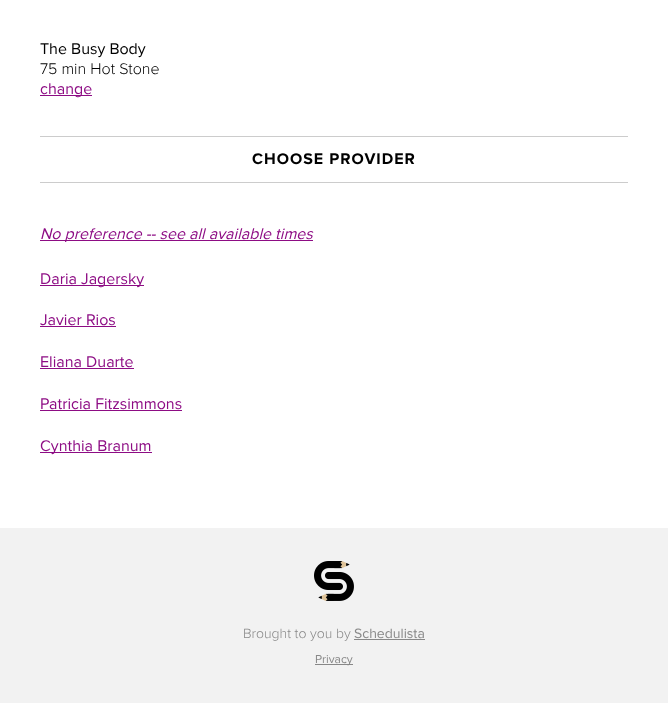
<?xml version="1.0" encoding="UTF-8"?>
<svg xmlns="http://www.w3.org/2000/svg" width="668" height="703">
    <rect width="100%" height="100%" fill="#FFFFFF"/>
    <text x="40" y="54" font-family="'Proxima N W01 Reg'" font-size="16" fill="#000000">The Busy Body</text>
    <text x="40" y="74" font-family="'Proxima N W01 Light'" font-size="16" font-weight="300" fill="#000000">75 min Hot Stone</text>
    <rect x="40" y="95" width="52" height="1" fill="#8D0C84"/>
    <text x="40" y="94" font-family="'Proxima N W01 Reg'" font-size="16" fill="#8D0C84">change</text>
    <rect x="40" y="136" width="588" height="1" fill="#CCCCCC"/>
    <rect x="40" y="182" width="588" height="1" fill="#CCCCCC"/>
    <text x="252" y="164" font-family="'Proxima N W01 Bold'" font-size="16" font-weight="700" letter-spacing="1" fill="#000000">CHOOSE PROVIDER</text>
    <rect x="40" y="240" width="273" height="1" fill="#8D0C84"/>
    <text x="40" y="239" font-family="'Proxima N W01 Reg'" font-size="16" font-style="italic" fill="#8D0C84">No preference -- see all available times</text>
    <rect x="40" y="285" width="104" height="1" fill="#8D0C84"/>
    <text x="40" y="284" font-family="'Proxima N W01 Reg'" font-size="16" fill="#8D0C84">Daria Jagersky</text>
    <text x="40" y="325" font-family="'Proxima N W01 Reg'" font-size="16" fill="#8D0C84">Javier Rios</text>
    <rect x="40" y="326" width="76" height="1" fill="#8D0C84"/>
    <text x="40" y="367" font-family="'Proxima N W01 Reg'" font-size="16" fill="#8D0C84">Eliana Duarte</text>
    <rect x="40" y="368" width="94" height="1" fill="#8D0C84"/>
    <text x="40" y="409" font-family="'Proxima N W01 Reg'" font-size="16" fill="#8D0C84">Patricia Fitzsimmons</text>
    <rect x="40" y="410" width="142" height="1" fill="#8D0C84"/>
    <rect x="40" y="452" width="112" height="1" fill="#8D0C84"/>
    <text x="40" y="451" font-family="'Proxima N W01 Reg'" font-size="16" fill="#8D0C84">Cynthia Branum</text>
    <rect x="0" y="528" width="668" height="175" fill="#F2F2F2"/>
    <image x="314" y="561" width="40" height="40" href="img_01.png"/>
    <text x="243" y="638" font-family="'Proxima N W01 Light'" font-size="14" font-weight="300" fill="#888888">Brought to you by</text>
    <text x="354" y="638" font-family="'Proxima N W01 Reg'" font-size="14" fill="#888888">Schedulista</text>
    <rect x="354" y="639" width="71" height="1" fill="#888888"/>
    <rect x="315" y="664" width="38" height="1" fill="#888888"/>
    <text x="315" y="663" font-family="'Proxima N W01 Reg'" font-size="12" fill="#888888">Privacy</text>
</svg>
